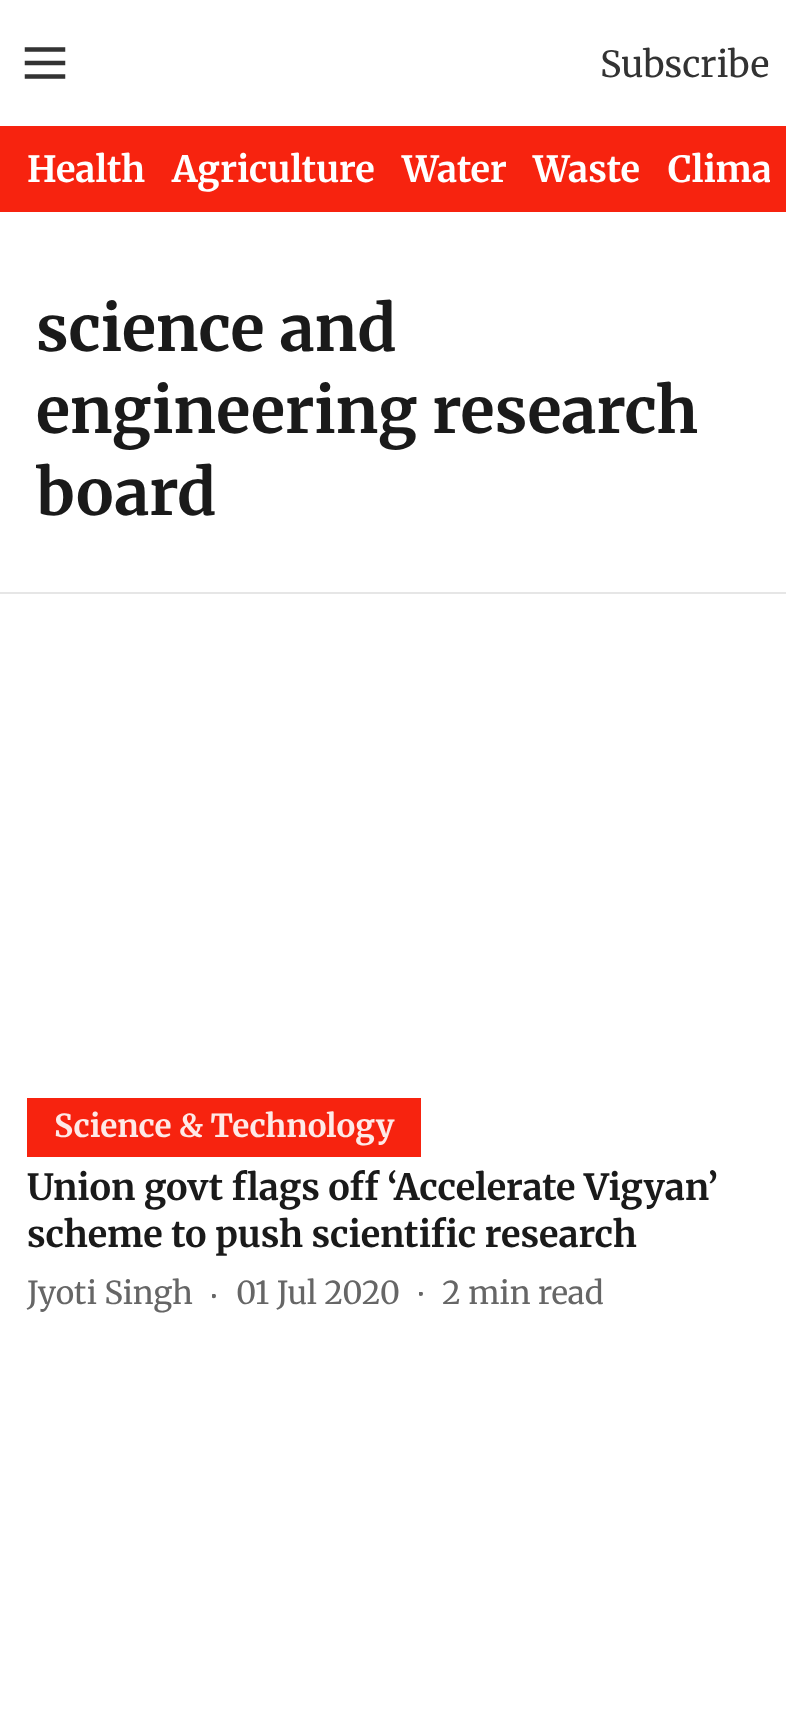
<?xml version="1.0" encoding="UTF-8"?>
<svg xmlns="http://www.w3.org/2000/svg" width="786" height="1733">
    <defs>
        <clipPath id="clip1"><rect x="0" y="126" width="770" height="86"/></clipPath>
        <clipPath id="clip2"><rect x="212" y="1294" width="7" height="7"/></clipPath>
        <clipPath id="clip3"><rect x="419" y="1292" width="7" height="7"/></clipPath>
    </defs>
    <rect width="100%" height="100%" fill="#FFFFFF"/>
    <image x="24" y="47" width="42" height="32" href="img_01.png"/>
    <text x="600" y="77" font-family="'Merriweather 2'" font-size="36" font-weight="300" fill="#333333">Subscribe</text>
    <rect x="0" y="126" width="786" height="86" fill="#F7230F"/>
    <text x="27" y="182" font-family="Merriweather" font-size="36" font-weight="300" fill="#FFFFFF">Health</text>
    <text x="172" y="182" font-family="Merriweather" font-size="36" font-weight="300" fill="#FFFFFF">Agriculture</text>
    <text x="402" y="182" font-family="Merriweather" font-size="36" font-weight="300" fill="#FFFFFF">Water</text>
    <text x="533" y="182" font-family="Merriweather" font-size="36" font-weight="300" fill="#FFFFFF">Waste</text>
    <g clip-path="url(#clip1)">
        <text x="668" y="182" font-family="Merriweather" font-size="36" font-weight="300" fill="#FFFFFF">Clima</text>
    </g>
    <rect x="0" y="592" width="786" height="2" fill="#E6E6E6"/>
    <text font-family="Merriweather" font-size="63" font-weight="300" fill="#1A1A1A">
        <tspan x="36" y="351">science and</tspan>
        <tspan x="36" y="433">engineering research</tspan>
        <tspan x="36" y="515">board</tspan>
    </text>
    <rect x="27" y="1098" width="394" height="59" fill="#F7230F"/>
    <text x="54" y="1137" font-family="Merriweather" font-size="31.5" font-weight="300" fill="#FEE9E7">Science &amp; Technology</text>
    <text font-family="Merriweather" font-size="36" font-weight="300" fill="#1A1A1A">
        <tspan x="27" y="1200">Union govt flags off ‘Accelerate Vigyan’</tspan>
        <tspan x="27" y="1247">scheme to push scientific research</tspan>
    </text>
    <text x="27" y="1304" font-family="'Merriweather 2'" font-size="31.5" font-weight="300" fill="#666666">Jyoti Singh</text>
    <g clip-path="url(#clip2)">
        <circle cx="213.8" cy="1296" r="2.2" fill="#666666"/>
    </g>
    <text x="236" y="1304" font-family="'Merriweather 2'" font-size="31.5" font-weight="300" fill="#666666">01 Jul 2020</text>
    <g clip-path="url(#clip3)">
        <circle cx="420.8" cy="1293.8" r="2.2" fill="#666666"/>
    </g>
    <text x="442" y="1304" font-family="'Merriweather 2'" font-size="31.5" font-weight="300" fill="#666666">2 min read</text>
</svg>
